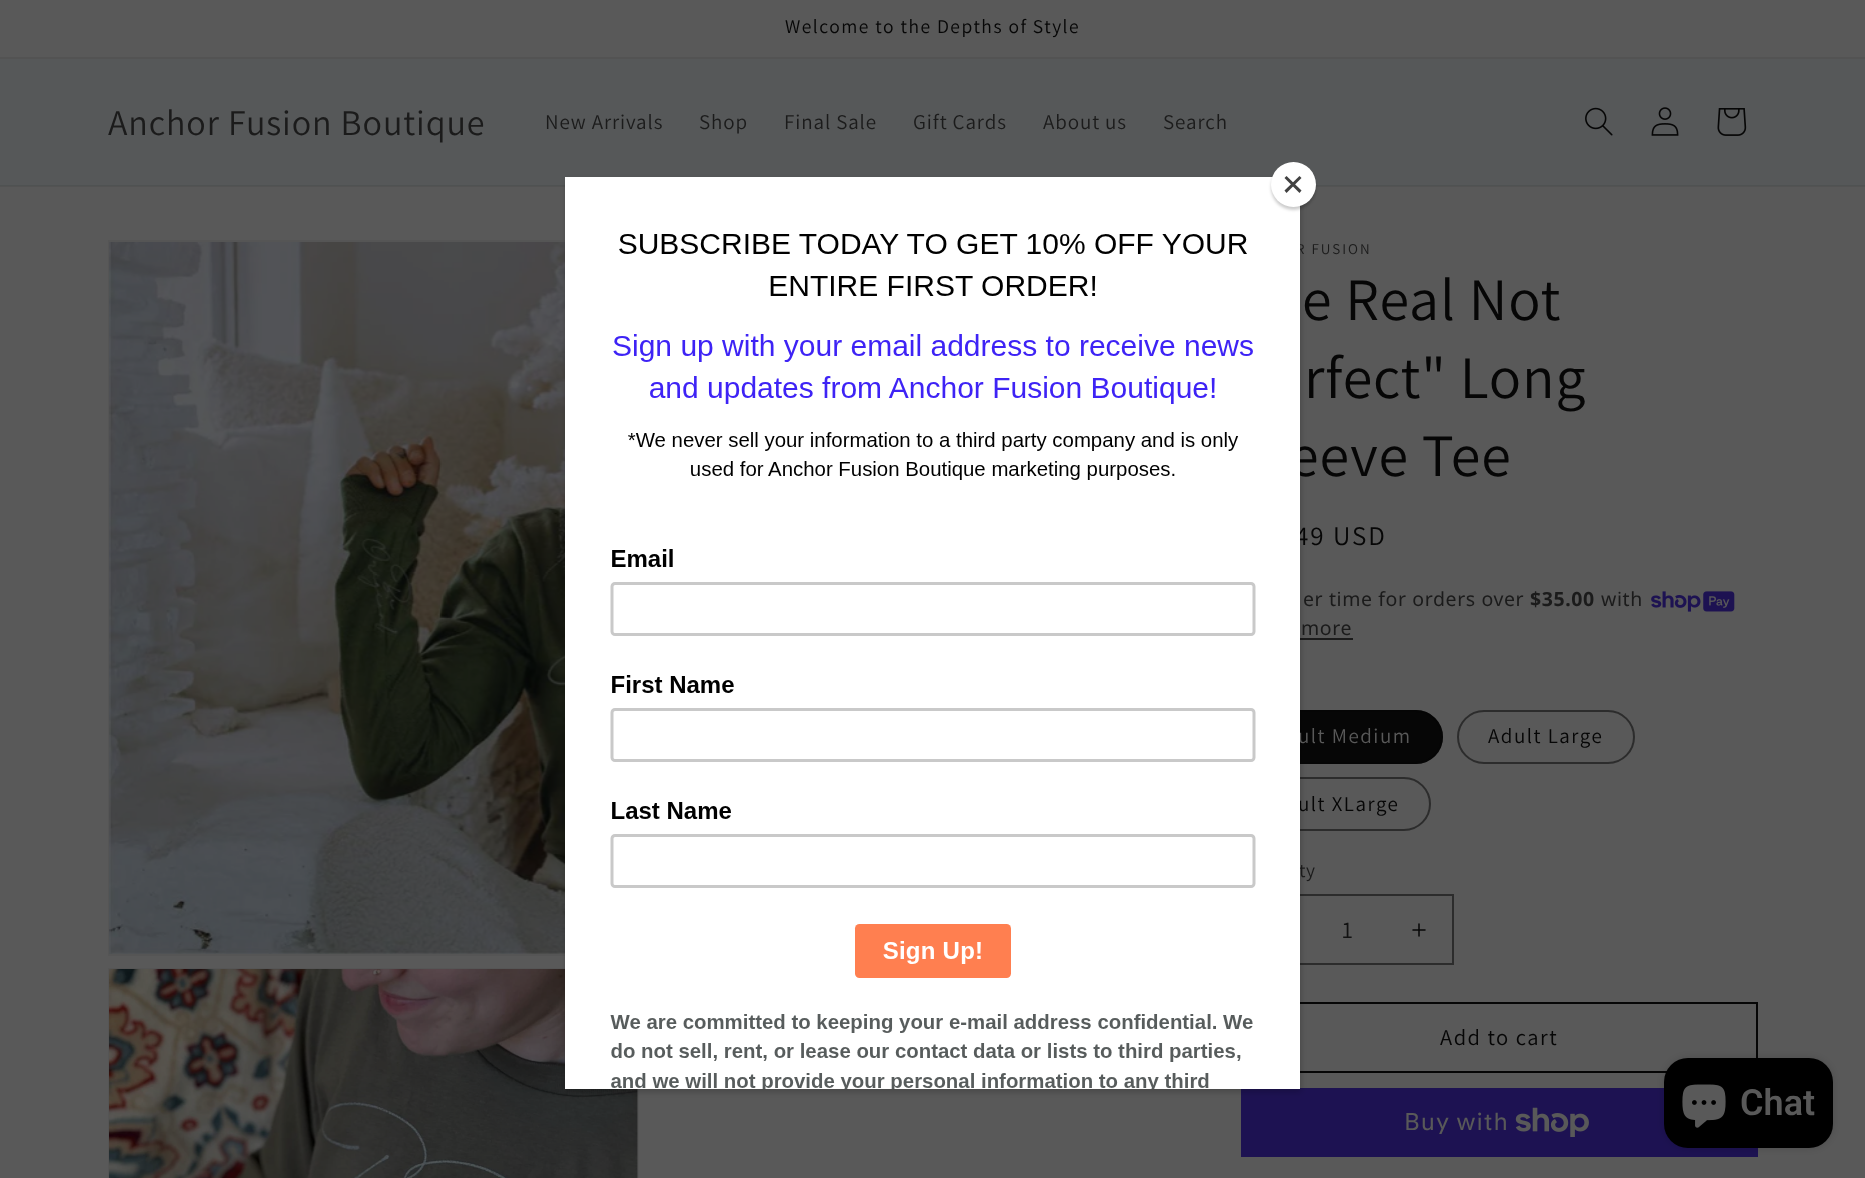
<?xml version="1.0" encoding="UTF-8"?>
<svg xmlns="http://www.w3.org/2000/svg" width="1865" height="1178">
    <defs>
        <filter id="blur1" x="-50%" y="-200%" width="200%" height="500%"><feGaussianBlur stdDeviation="3"/></filter>
        <filter id="blur2" x="-50%" y="-200%" width="200%" height="500%"><feGaussianBlur stdDeviation="1.5"/></filter>
        <filter id="blur3" x="-50%" y="-200%" width="200%" height="500%"><feGaussianBlur stdDeviation="4"/></filter>
    </defs>
    <rect width="100%" height="100%" fill="#595959"/>
    <rect x="0" y="186" width="1865" height="1" fill="#535353"/>
    <rect x="0" y="57" width="1865" height="2" fill="#535353"/>
    <text x="785" y="33" font-family="Assistant" font-size="19.5" letter-spacing="1.5" fill="#060606">Welcome to the Depths of Style</text>
    <rect x="0" y="59" width="1865" height="126" fill="#565859"/>
    <rect x="0" y="185" width="1865" height="1" fill="#4F5252"/>
    <text x="108" y="135" font-family="Assistant" font-size="36" letter-spacing="0.9" fill="#1B1B1B">Anchor Fusion Boutique</text>
    <text x="545" y="129" font-family="Assistant" font-size="21" letter-spacing="0.9" fill="#1B1B1B">New Arrivals</text>
    <text x="699" y="129" font-family="Assistant" font-size="21" letter-spacing="0.9" fill="#1B1B1B">Shop</text>
    <text x="784" y="129" font-family="Assistant" font-size="21" letter-spacing="0.9" fill="#1B1B1B">Final Sale</text>
    <text x="913" y="129" font-family="Assistant" font-size="21" letter-spacing="0.9" fill="#1B1B1B">Gift Cards</text>
    <text x="1043" y="129" font-family="Assistant" font-size="21" letter-spacing="0.9" fill="#1B1B1B">About us</text>
    <text x="1163" y="129" font-family="Assistant" font-size="21" letter-spacing="0.9" fill="#1B1B1B">Search</text>
    <image x="1585" y="107" width="28" height="29" href="img_01.png"/>
    <image x="1651" y="107" width="28" height="29" href="img_02.png"/>
    <image x="1717" y="108" width="30" height="28" href="img_03.png"/>
    <rect x="109" y="241" width="1071" height="714" fill="none" stroke="#555555" stroke-width="2"/>
    <image x="109" y="242" width="456" height="712" href="img_05.png"/>
    <rect x="109" y="969" width="529" height="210" fill="none" stroke="#555555" stroke-width="2"/>
    <image x="109" y="969" width="529" height="209" href="img_06.png"/>
    <rect x="1300" y="638" width="53" height="2" fill="#1B1B1B"/>
    <rect x="1241" y="710" width="202" height="54" rx="27" fill="#060606"/>
    <rect x="1242" y="711" width="200" height="52" rx="26" fill="none" stroke="#060606" stroke-opacity="0.55" stroke-width="2"/>
    <rect x="1242" y="778" width="188" height="52" rx="26" fill="none" stroke="#2C2C2C" stroke-width="2"/>
    <image x="1412" y="923" width="14" height="14" href="img_08.png"/>
    <rect x="1242" y="895" width="211" height="69" fill="none" stroke="#2C2C2C" stroke-width="2"/>
    <rect x="1242" y="1003" width="515" height="69" fill="none" stroke="#060606" stroke-width="2"/>
    <rect x="1241" y="1088" width="517" height="69" fill="#1D1252"/>
    <rect x="566" y="180" width="735" height="912" fill="#000000" fill-opacity="0.2" filter="url(#blur1)"/>
    <text x="1296" y="254" font-family="Assistant" font-size="15" letter-spacing="2" fill="#1B1B1B">R FUSION</text>
    <text x="1289" y="476" font-family="Assistant" font-size="60" letter-spacing="0.9" fill="#060606">eeve Tee</text>
    <text x="1295" y="545" font-family="Assistant" font-size="27" letter-spacing="2" fill="#060606">49 USD</text>
    <text x="1298" y="743" font-family="Assistant" font-size="21" letter-spacing="1.5" fill="#595959">ult Medium</text>
    <text x="1298" y="811" font-family="Assistant" font-size="21" letter-spacing="1.5" fill="#060606">ult XLarge</text>
    <text x="1299" y="877" font-family="Assistant" font-size="19.5" letter-spacing="0.6" fill="#1B1B1B">ty</text>
    <image x="565" y="177" width="735" height="912" href="img_04.png"/>
    <rect x="1271" y="165" width="45" height="45" rx="22.5" fill="#000000" fill-opacity="0.2" filter="url(#blur2)"/>
    <circle cx="1293.5" cy="184.5" r="22.5" fill="#FFFFFF"/>
    <path d="M 1299.5 176 L 1301.5 178 L 1286.5 193 L 1284.5 190.5 Z" fill="#414141"/>
    <path d="M 1284.5 178 L 1286.5 176 L 1301.5 190.5 L 1299.5 193 Z" fill="#414141"/>
    <text x="1302" y="320" font-family="Assistant" font-size="60" letter-spacing="0.9" fill="#060606">e Real Not</text>
    <text x="1304" y="398" font-family="Assistant" font-size="60" letter-spacing="0.9" fill="#060606">rfect" Long</text>
    <text x="1303" y="606" font-family="Noto Sans" font-size="19.5" letter-spacing="0.6" fill="#1B1B1B">er time for orders over</text>
    <text x="1530" y="606" font-family="Noto Sans" font-size="19.5" font-weight="700" letter-spacing="0.6" fill="#1B1B1B">$35.00</text>
    <text x="1601" y="606" font-family="Noto Sans" font-size="19.5" letter-spacing="0.6" fill="#1B1B1B">with</text>
    <image x="1651" y="591" width="84" height="21" href="img_07.png"/>
    <text x="1301" y="635" font-family="Noto Sans" font-size="19.5" letter-spacing="0.6" fill="#1B1B1B">more</text>
    <rect x="1458" y="711" width="176" height="52" rx="26" fill="none" stroke="#2C2C2C" stroke-width="2"/>
    <text x="1488" y="743" font-family="Assistant" font-size="21" letter-spacing="1.5" fill="#060606">Adult Large</text>
    <text x="1342" y="938" font-family="Assistant" font-size="24" fill="#131313">1</text>
    <text x="1440" y="1045" font-family="Assistant" font-size="22.5" letter-spacing="1.5" fill="#060606">Add to cart</text>
    <text x="1404" y="1130" font-family="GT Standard" font-size="24" letter-spacing="0.9" fill="#595959">Buy with</text>
    <image x="1515" y="1107" width="74" height="30" href="img_09.png"/>
    <rect x="1664" y="1058" width="169" height="90" rx="24" fill="#000000" fill-opacity="0.15" filter="url(#blur3)"/>
    <rect x="1664" y="1058" width="169" height="90" rx="24" fill="#000000"/>
    <image x="1682" y="1084" width="44" height="44" href="img_10.png"/>
    <text x="1740" y="1115" font-family="Roboto" font-size="36" font-weight="600" fill="#595959">Chat</text>
</svg>
